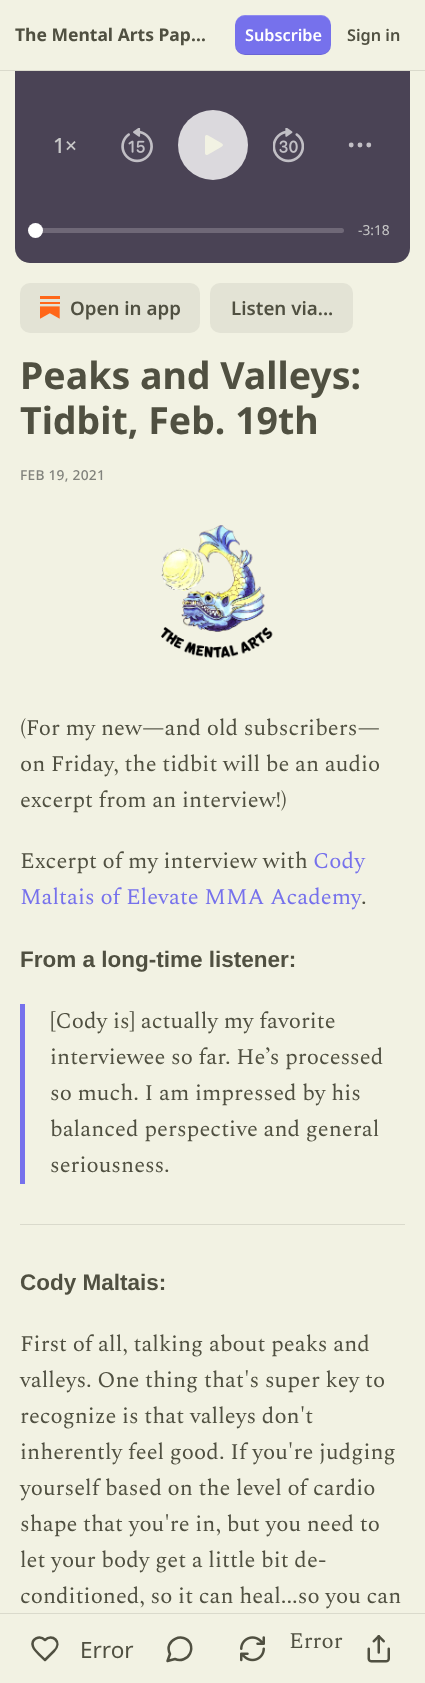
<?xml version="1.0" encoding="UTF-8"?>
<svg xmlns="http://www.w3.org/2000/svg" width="425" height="1683">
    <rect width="100%" height="100%" fill="#F2F2E3"/>
    <rect x="15" y="13" width="395" height="250" rx="15" fill="#9F9F95"/>
    <rect x="15" y="13" width="395" height="250" rx="15" fill="#2E2440" fill-opacity="0.75"/>
    <rect x="15" y="13" width="395" height="57" fill="#F2F2E3"/>
    <rect x="0" y="70" width="425" height="1" fill="#DADACC"/>
    <text x="15" y="41" font-family="Noto Sans" font-size="17.5" font-weight="700" fill="#505041">The Mental Arts Pap…</text>
    <rect x="235" y="15" width="96" height="40" rx="10" fill="#7671EC"/>
    <path d="M 235 44 C 235 57 248 55 258 55 H 308 C 318 55 331 57 331 44 C 331 49 327 54 321 54 H 245 C 239 54 235 49 235 44 Z" fill="#000000" fill-opacity="0.1"/>
    <path d="M 245 16 H 321 C 327 16 331 21 331 26 C 331 13 318 15 308 15 H 258 C 248 15 235 13 235 26 C 235 21 239 16 245 16 Z" fill="#FFFFFF" fill-opacity="0.2"/>
    <text x="245" y="41" font-family="Noto Sans" font-size="16.25" font-weight="600" fill="#FFFFFF">Subscribe</text>
    <text x="347" y="41" font-family="Noto Sans" font-size="16.25" font-weight="600" fill="#505041">Sign in</text>
    <text x="53" y="153" font-family="Noto Sans" font-size="21" font-weight="500" fill="#C8C8C8">1×</text>
    <image x="121" y="128" width="32" height="35" href="img_01.png"/>
    <circle cx="213" cy="145" r="35" fill="#DBD9DD"/>
    <image x="205" y="135" width="18" height="20" href="img_02.png"/>
    <image x="273" y="128" width="31" height="35" href="img_03.png"/>
    <circle cx="360" cy="145" r="1.2" fill="none" stroke="#C2BFC5" stroke-width="2.5"/>
    <circle cx="368.8" cy="145" r="1.2" fill="none" stroke="#C2BFC5" stroke-width="2.5"/>
    <circle cx="351.2" cy="145" r="1.2" fill="none" stroke="#C2BFC5" stroke-width="2.5"/>
    <rect x="35" y="228" width="309" height="5" rx="2.5" fill="#6F6877"/>
    <circle cx="35.5" cy="230.5" r="7.5" fill="#FFFFFF"/>
    <text x="358" y="235" font-family="Noto Sans" font-size="13.75" fill="#C8C8C8">-3:18</text>
    <rect x="20" y="283" width="180" height="50" rx="10" fill="#E3E3D5"/>
    <image x="40" y="296" width="20" height="23" href="img_04.png"/>
    <text x="70" y="315" font-family="Noto Sans" font-size="18.75" font-weight="600" fill="#505041">Open in app</text>
    <rect x="210" y="283" width="143" height="50" rx="10" fill="#E3E3D5"/>
    <text x="231" y="315" font-family="Noto Sans" font-size="18.75" font-weight="600" fill="#505041">Listen via...</text>
    <text font-family="Noto Sans" font-size="37.5" font-weight="700" fill="#505041">
        <tspan x="20" y="389">Peaks and Valleys:</tspan>
        <tspan x="20" y="434">Tidbit, Feb. 19th</tspan>
    </text>
    <text x="20" y="480" font-family="Noto Sans" font-size="13.75" font-weight="500" letter-spacing="0.25" fill="#81827C">FEB 19, 2021</text>
    <image x="161" y="525" width="112" height="133" href="img_05.png"/>
    <text font-family="Spectral" font-size="22.5" fill="#505041">
        <tspan x="20" y="735">(For my new—and old subscribers—</tspan>
        <tspan x="20" y="771">on Friday, the tidbit will be an audio</tspan>
        <tspan x="20" y="807">excerpt from an interview!)</tspan>
    </text>
    <text x="20" y="868" font-family="Spectral" font-size="22.5" fill="#505041">Excerpt of my interview with</text>
    <text x="313" y="868" font-family="Spectral" font-size="22.5" fill="#7671EC">Cody</text>
    <text x="20" y="904" font-family="Spectral" font-size="22.5" fill="#7671EC">Maltais of Elevate MMA Academy</text>
    <text x="361" y="904" font-family="Spectral" font-size="22.5" fill="#505041">.</text>
    <text x="20" y="967" font-family="Liberation Sans" font-size="22.5" font-weight="700" fill="#505041">From a long-time listener:</text>
    <rect x="20" y="1004" width="5" height="180" fill="#7671EC"/>
    <text font-family="Spectral" font-size="22.5" fill="#505041">
        <tspan x="50" y="1028">[Cody is] actually my favorite</tspan>
        <tspan x="50" y="1064">interviewee so far. He’s processed</tspan>
        <tspan x="50" y="1100">so much. I am impressed by his</tspan>
        <tspan x="50" y="1136">balanced perspective and general</tspan>
        <tspan x="50" y="1172">seriousness.</tspan>
    </text>
    <rect x="20" y="1224" width="385" height="1" fill="#DADACC"/>
    <text x="20" y="1290" font-family="Liberation Sans" font-size="22.5" font-weight="700" fill="#505041">Cody Maltais:</text>
    <text font-family="Spectral" font-size="22.5" fill="#505041">
        <tspan x="20" y="1351">First of all, talking about peaks and</tspan>
        <tspan x="20" y="1387">valleys. One thing that's super key to</tspan>
        <tspan x="20" y="1423">recognize is that valleys don't</tspan>
        <tspan x="20" y="1459">inherently feel good. If you're judging</tspan>
        <tspan x="20" y="1495">yourself based on the level of cardio</tspan>
        <tspan x="20" y="1531">shape that you're in, but you need to</tspan>
        <tspan x="20" y="1567">let your body get a little bit de-</tspan>
        <tspan x="20" y="1603">conditioned, so it can heal...so you can</tspan>
    </text>
    <rect x="0" y="1613" width="425" height="1" fill="#DADACC"/>
    <path d="M 54 1651 C 63 1642 52 1633 45 1640 C 39.5 1634.5 30.5 1639 33 1646.5 C 34 1650.5 42 1657 45 1660 Z" fill="none" stroke="#505041" stroke-width="2.5" stroke-linecap="round" stroke-linejoin="round"/>
    <text x="80" y="1658" font-family="Noto Sans" font-size="22.5" fill="#505041">Error</text>
    <path d="M 175 1659 C 180.5 1661.5 187.5 1659 190 1653.5 C 191.5 1650.5 191.5 1647 190.5 1644 C 184 1630.5 163 1640.5 170 1654 L 167.5 1661 Z" fill="none" stroke="#505041" stroke-width="2.5" stroke-linecap="round" stroke-linejoin="round"/>
    <image x="240" y="1636" width="25" height="26" href="img_06.png"/>
    <text x="289" y="1648" font-family="Spectral" font-size="22.5" fill="#505041">Error</text>
    <image x="367" y="1635" width="23" height="28" href="img_07.png"/>
</svg>
